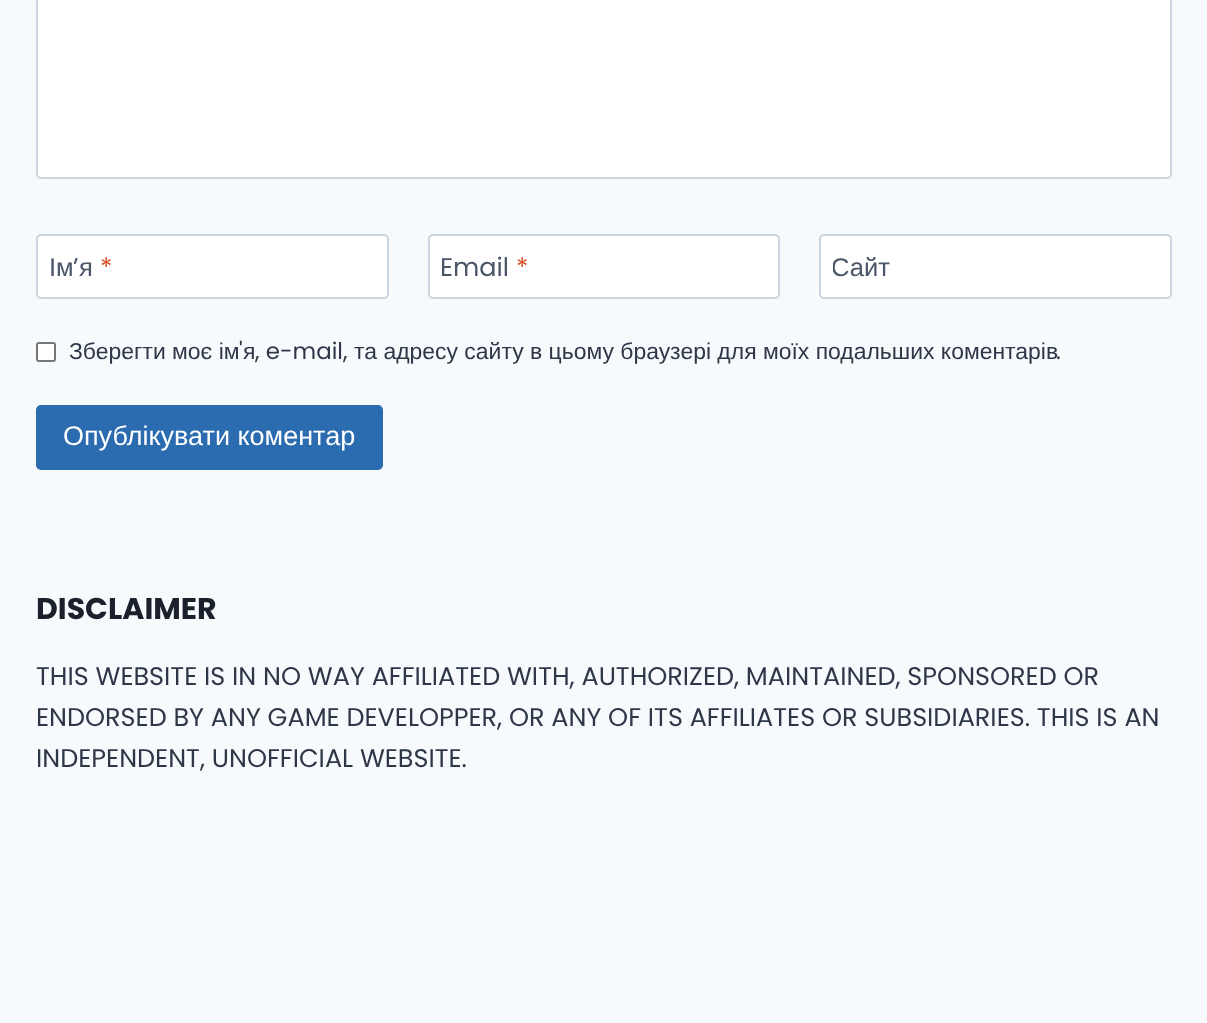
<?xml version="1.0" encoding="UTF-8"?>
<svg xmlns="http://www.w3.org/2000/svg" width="1207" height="1023">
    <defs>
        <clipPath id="clip1"><rect x="833" y="251" width="58" height="43"/></clipPath>
    </defs>
    <rect width="100%" height="100%" fill="#F7FAFC"/>
    <rect x="37" y="-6" width="1134" height="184" rx="4" fill="#FFFFFF" stroke="#CBD5E0" stroke-width="2"/>
    <rect x="37" y="235" width="351" height="63" rx="4" fill="#FFFFFF" stroke="#CBD5E0" stroke-width="2"/>
    <text x="49" y="276" font-family="Liberation Sans" font-size="25.5" fill="#4A5568">Ім</text>
    <text x="73" y="276" font-family="Poppins" font-size="25.5" fill="#4A5568">’</text>
    <text x="100" y="276" font-family="Poppins" font-size="25.5" fill="#D54E21">*</text>
    <text x="79" y="276" font-family="Liberation Sans" font-size="25.5" fill="#4A5568">я</text>
    <rect x="429" y="235" width="350" height="63" rx="4" fill="#FFFFFF" stroke="#CBD5E0" stroke-width="2"/>
    <text x="440" y="276" font-family="Poppins" font-size="25.5" fill="#4A5568">Email</text>
    <text x="516" y="276" font-family="Poppins" font-size="25.5" fill="#D54E21">*</text>
    <rect x="820" y="235" width="351" height="63" rx="4" fill="#FFFFFF" stroke="#CBD5E0" stroke-width="2"/>
    <g clip-path="url(#clip1)">
        <text x="831" y="276" font-family="Liberation Sans" font-size="25.5" fill="#4A5568">Сайт</text>
    </g>
    <rect x="37" y="343" width="18" height="18" rx="2" fill="#FFFFFF" stroke="#767676" stroke-width="2"/>
    <text x="69" y="359" font-family="Liberation Sans" font-size="22.95" fill="#2D3748">Зберегти моє ім</text>
    <text x="239" y="359" font-family="Poppins" font-size="22.95" fill="#2D3748">'</text>
    <text x="243" y="359" font-family="Liberation Sans" font-size="22.95" fill="#2D3748">я</text>
    <text x="255" y="359" font-family="Poppins" font-size="22.95" fill="#2D3748">, e-mail,</text>
    <text x="354" y="359" font-family="Liberation Sans" font-size="22.95" fill="#2D3748">та адресу сайту в цьому браузері для моїх подальших коментарів</text>
    <text x="1056" y="359" font-family="Poppins" font-size="22.95" fill="#2D3748">.</text>
    <rect x="36" y="405" width="347" height="65" rx="5" fill="#2B6CB0"/>
    <text x="63" y="445" font-family="Liberation Sans" font-size="27" fill="#FFFFFF">Опублікувати коментар</text>
    <text x="36" y="619" font-family="Poppins" font-size="30" font-weight="700" fill="#1A202C">DISCLAIMER</text>
    <text font-family="Poppins" font-size="25.5" fill="#2D3748">
        <tspan x="36" y="685">THIS WEBSITE IS IN NO WAY AFFILIATED WITH, AUTHORIZED, MAINTAINED, SPONSORED OR</tspan>
        <tspan x="36" y="726">ENDORSED BY ANY GAME DEVELOPPER, OR ANY OF ITS AFFILIATES OR SUBSIDIARIES. THIS IS AN</tspan>
        <tspan x="36" y="767">INDEPENDENT, UNOFFICIAL WEBSITE.</tspan>
    </text>
</svg>
